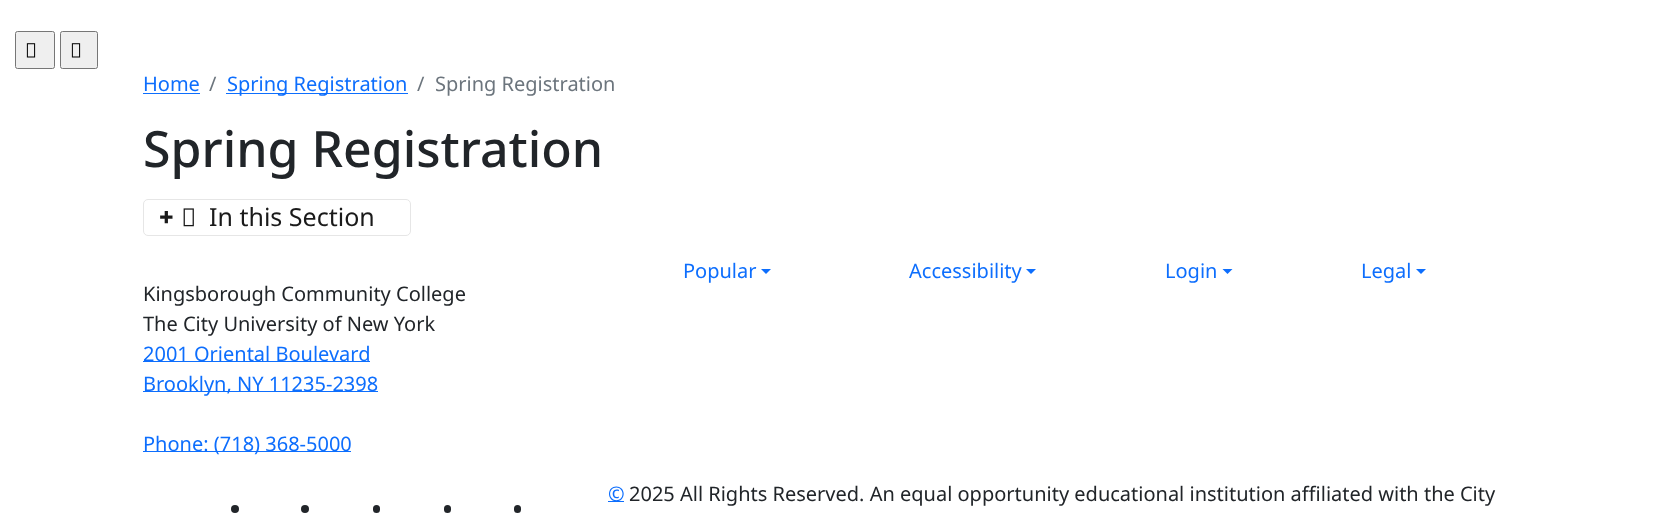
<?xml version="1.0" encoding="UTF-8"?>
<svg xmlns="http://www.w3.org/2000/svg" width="1679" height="518">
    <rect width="100%" height="100%" fill="#FFFFFF"/>
    <rect x="15.5" y="31.5" width="39" height="37" rx="2" fill="#EFEFEF" stroke="#767676"/>
    <image x="26" y="43" width="10" height="15" href="img_01.png"/>
    <rect x="60.5" y="31.5" width="37" height="37" rx="2" fill="#EFEFEF" stroke="#767676"/>
    <image x="71" y="43" width="10" height="15" href="img_01.png"/>
    <text x="143" y="91" font-family="Noto Sans" font-size="20" fill="#0D6EFD">Home</text>
    <rect x="143" y="93" width="57" height="1" fill="#0D6EFD"/>
    <text x="209" y="91" font-family="Noto Sans" font-size="20" fill="#6C757D">/</text>
    <rect x="226" y="93" width="182" height="1" fill="#0D6EFD"/>
    <text x="227" y="91" font-family="Noto Sans" font-size="20" fill="#0D6EFD">Spring Registration</text>
    <text x="417" y="91" font-family="Noto Sans" font-size="20" fill="#6C757D">/</text>
    <text x="435" y="91" font-family="Noto Sans" font-size="20" fill="#6C757D">Spring Registration</text>
    <text x="143" y="167" font-family="Noto Sans" font-size="50" font-weight="500" fill="#212529">Spring Registration</text>
    <rect x="143.5" y="199.5" width="267" height="36" rx="4.5" fill="none" stroke="#E6E6E6"/>
    <text x="159" y="226" font-family="Noto Sans" font-size="25" font-weight="900" fill="#1A1A1A">+</text>
    <image x="183" y="208" width="11" height="19" href="img_02.png"/>
    <text x="209" y="226" font-family="Noto Sans" font-size="25" fill="#1A1A1A">In this Section</text>
    <text x="683" y="278" font-family="Noto Sans" font-size="20" fill="#0D6EFD">Popular</text>
    <path d="M 761 269 H 771 L 766 274 Z" fill="#0D6EFD"/>
    <text x="909" y="278" font-family="Noto Sans" font-size="20" fill="#0D6EFD">Accessibility</text>
    <path d="M 1026 269 H 1036 L 1031 274 Z" fill="#0D6EFD"/>
    <text x="1165" y="278" font-family="Noto Sans" font-size="20" fill="#0D6EFD">Login</text>
    <path d="M 1222.5 269 H 1232.5 L 1227.5 274 Z" fill="#0D6EFD"/>
    <text x="1361" y="278" font-family="Noto Sans" font-size="20" fill="#0D6EFD">Legal</text>
    <path d="M 1416 269 H 1426 L 1421 274 Z" fill="#0D6EFD"/>
    <text font-family="Noto Sans" font-size="20" fill="#212529">
        <tspan x="143" y="301">Kingsborough Community College</tspan>
        <tspan x="143" y="331">The City University of New York</tspan>
    </text>
    <rect x="143" y="361" width="227" height="1" fill="#0D6EFD"/>
    <text x="143" y="361" font-family="Noto Sans" font-size="20" fill="#0D6EFD">2001 Oriental Boulevard</text>
    <rect x="143" y="391" width="235" height="1" fill="#0D6EFD"/>
    <text x="143" y="391" font-family="Noto Sans" font-size="20" fill="#0D6EFD">Brooklyn, NY 11235-2398</text>
    <rect x="143" y="451" width="208" height="1" fill="#0D6EFD"/>
    <text x="143" y="451" font-family="Noto Sans" font-size="20" fill="#0D6EFD">Phone: (718) 368-5000</text>
    <rect x="608" y="501" width="16" height="1" fill="#0D6EFD"/>
    <text x="608" y="501" font-family="Noto Sans" font-size="20" fill="#0D6EFD">©</text>
    <text x="629" y="501" font-family="Noto Sans" font-size="20" fill="#212529">2025 All Rights Reserved. An equal opportunity educational institution affiliated with the City</text>
    <circle cx="235" cy="509" r="4" fill="#212529"/>
    <circle cx="305" cy="509" r="4" fill="#212529"/>
    <rect x="373" y="505" width="7" height="8" rx="3.5" fill="#212529"/>
    <rect x="444" y="505" width="7" height="8" rx="3.5" fill="#212529"/>
    <rect x="514" y="505" width="7" height="8" rx="3.5" fill="#212529"/>
</svg>
